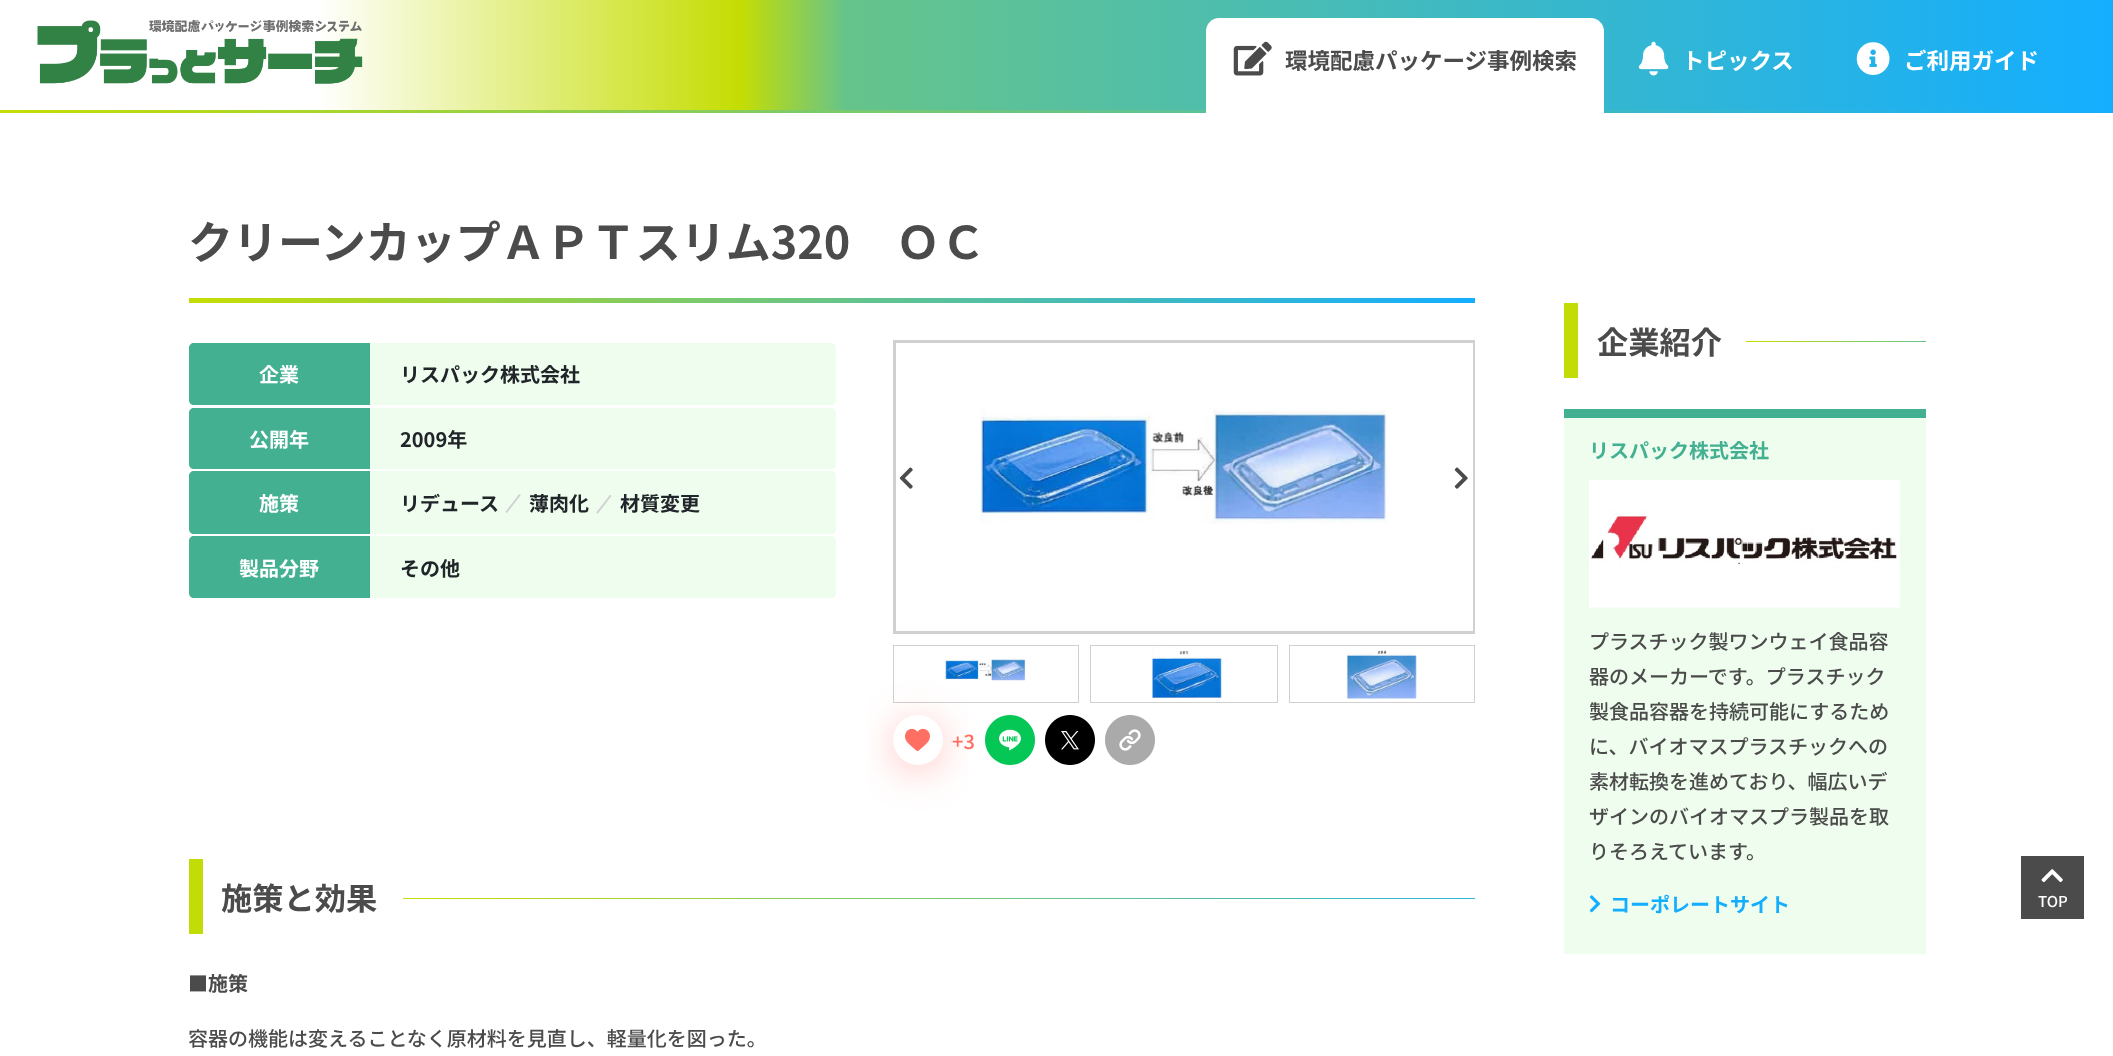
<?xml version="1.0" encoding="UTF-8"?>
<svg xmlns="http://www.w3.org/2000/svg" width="2113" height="1056">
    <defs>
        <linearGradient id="g1" gradientUnits="userSpaceOnUse" x1="0" y1="56" x2="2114" y2="56"><stop offset="0" stop-color="#FFFFFF"/><stop offset="0.15" stop-color="#FFFFFF"/><stop offset="0.35" stop-color="#C5DD03"/><stop offset="0.4" stop-color="#66C48A"/><stop offset="1" stop-color="#14AEFF"/></linearGradient>
        <linearGradient id="g2" gradientUnits="userSpaceOnUse" x1="0" y1="111" x2="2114" y2="111"><stop offset="0" stop-color="#C5DD03"/><stop offset="0.51" stop-color="#66C48A"/><stop offset="1" stop-color="#14AEFF"/></linearGradient>
        <linearGradient id="g3" gradientUnits="userSpaceOnUse" x1="189" y1="300" x2="1475" y2="300"><stop offset="0" stop-color="#C5DD03"/><stop offset="0.51" stop-color="#66C48A"/><stop offset="1" stop-color="#14AEFF"/></linearGradient>
        <clipPath id="clip1"><rect x="893" y="340" width="582" height="294"/></clipPath>
        <filter id="blur1" x="-50%" y="-200%" width="200%" height="500%"><feGaussianBlur stdDeviation="19"/></filter>
        <linearGradient id="g4" gradientUnits="userSpaceOnUse" x1="1746" y1="342" x2="2095" y2="342"><stop offset="0" stop-color="#C5DD03"/><stop offset="0.51" stop-color="#66C48A"/><stop offset="1" stop-color="#14AEFF"/></linearGradient>
        <linearGradient id="g5" gradientUnits="userSpaceOnUse" x1="403" y1="898" x2="1676" y2="898"><stop offset="0" stop-color="#C5DD03"/><stop offset="0.51" stop-color="#66C48A"/><stop offset="1" stop-color="#14AEFF"/></linearGradient>
    </defs>
    <rect width="100%" height="100%" fill="#FFFFFF"/>
    <rect x="321" y="0" width="1792" height="110" fill="url(#g1)"/>
    <image x="37" y="20" width="326" height="64" href="img_01.png"/>
    <rect x="0" y="110" width="2113" height="3" fill="url(#g2)"/>
    <path d="M 1219 18 H 1591 C 1598 18 1604 24 1604 31 V 113 H 1206 V 31 C 1206 24 1212 18 1219 18 Z" fill="#FFFFFF"/>
    <image x="1233" y="41" width="39" height="35" href="img_02.png"/>
    <text x="1285" y="69" font-family="Noto Sans JP" font-size="22.5" font-weight="700" fill="#4B4B4B">環境配慮パッケージ事例検索</text>
    <image x="1638" y="41" width="31" height="35" href="img_03.png"/>
    <text x="1682" y="69" font-family="Noto Sans JP" font-size="22.5" font-weight="700" fill="#FFFFFF">トピックス</text>
    <image x="1856" y="42" width="34" height="33" href="img_04.png"/>
    <text x="1904" y="69" font-family="Noto Sans JP" font-size="22.5" font-weight="700" fill="#FFFFFF">ご利⽤ガイド</text>
    <text x="188" y="259" font-family="Noto Sans JP" font-size="45" font-weight="700" fill="#4B4B4B">クリーンカップＡＰＴスリム320　ＯＣ</text>
    <rect x="189" y="298" width="1286" height="5" fill="url(#g3)"/>
    <path d="M 194 343 H 370 V 405 H 194 C 191 405 189 403 189 400 V 348 C 189 345 191 343 194 343 Z" fill="#44B092"/>
    <text x="259" y="382" font-family="Noto Sans JP" font-size="20" font-weight="700" fill="#FFFFFF">企業</text>
    <path d="M 370 343 H 831 C 834 343 836 345 836 348 V 400 C 836 403 834 405 831 405 H 370 Z" fill="#EEFDEE"/>
    <text x="400" y="382" font-family="Noto Sans JP" font-size="20" font-weight="700" fill="#212529">リスパック株式会社</text>
    <path d="M 194 408 H 370 V 469 H 194 C 191 469 189 467 189 464 V 413 C 189 410 191 408 194 408 Z" fill="#44B092"/>
    <text x="249" y="447" font-family="Noto Sans JP" font-size="20" font-weight="700" fill="#FFFFFF">公開年</text>
    <path d="M 370 408 H 831 C 834 408 836 410 836 413 V 464 C 836 467 834 469 831 469 H 370 Z" fill="#EEFDEE"/>
    <text x="400" y="447" font-family="Noto Sans JP" font-size="20" font-weight="700" fill="#212529">2009年</text>
    <path d="M 194 471 H 370 V 534 H 194 C 191 534 189 532 189 529 V 476 C 189 473 191 471 194 471 Z" fill="#44B092"/>
    <text x="259" y="511" font-family="Noto Sans JP" font-size="20" font-weight="700" fill="#FFFFFF">施策</text>
    <path d="M 370 471 H 831 C 834 471 836 473 836 476 V 529 C 836 532 834 534 831 534 H 370 Z" fill="#EEFDEE"/>
    <text x="400" y="511" font-family="Noto Sans JP" font-size="20" font-weight="700" fill="#212529">リデュース</text>
    <image x="505" y="494" width="16" height="19" href="img_05.png"/>
    <text x="529" y="511" font-family="Noto Sans JP" font-size="20" font-weight="700" fill="#212529">薄⾁化</text>
    <image x="596" y="495" width="16" height="19" href="img_06.png"/>
    <text x="620" y="511" font-family="Noto Sans JP" font-size="20" font-weight="700" fill="#212529">材質変更</text>
    <path d="M 194 536 H 370 V 598 H 194 C 191 598 189 596 189 593 V 541 C 189 538 191 536 194 536 Z" fill="#44B092"/>
    <text x="239" y="576" font-family="Noto Sans JP" font-size="20" font-weight="700" fill="#FFFFFF">製品分野</text>
    <path d="M 370 536 H 831 C 834 536 836 538 836 541 V 593 C 836 596 834 598 831 598 H 370 Z" fill="#EEFDEE"/>
    <text x="400" y="576" font-family="Noto Sans JP" font-size="20" font-weight="700" fill="#212529">その他</text>
    <g clip-path="url(#clip1)">
        <rect x="894.5" y="341.5" width="580" height="291" fill="none" stroke="#D0D0D0" stroke-width="3"/>
    </g>
    <image x="980" y="407" width="408" height="117" href="img_07.png"/>
    <image x="899" y="467" width="14" height="22" href="img_08.png"/>
    <image x="1454" y="467" width="14" height="22" href="img_09.png"/>
    <rect x="893.5" y="645.5" width="185" height="57" fill="none" stroke="#D0D0D0"/>
    <image x="945" y="659" width="81" height="22" href="img_10.png"/>
    <rect x="1090.5" y="645.5" width="187" height="57" fill="none" stroke="#D0D0D0"/>
    <image x="1151" y="647" width="72" height="52" href="img_11.png"/>
    <rect x="1289.5" y="645.5" width="185" height="57" fill="none" stroke="#D0D0D0"/>
    <image x="1346" y="650" width="71" height="49" href="img_12.png"/>
    <image x="985" y="715" width="50" height="50" href="img_14.png"/>
    <rect x="893" y="721" width="50" height="50" rx="25" fill="#FF6F63" fill-opacity="0.4" filter="url(#blur1)"/>
    <circle cx="918" cy="740" r="25" fill="#FFFFFF"/>
    <image x="905" y="728" width="25" height="24" href="img_13.png"/>
    <text x="952" y="749" font-family="Noto Sans JP" font-size="20" font-weight="500" fill="#FF6F63">+3</text>
    <image x="1045" y="715" width="50" height="50" href="img_15.png"/>
    <image x="1105" y="715" width="50" height="50" href="img_16.png"/>
    <rect x="1564" y="303" width="14" height="75" fill="#C2DC07"/>
    <text x="1597" y="354" font-family="Noto Sans JP" font-size="31.25" font-weight="700" fill="#4B4B4B">企業紹介</text>
    <rect x="1746" y="341" width="180" height="1" fill="url(#g4)"/>
    <rect x="1564" y="418" width="362" height="536" fill="#EEFDEE"/>
    <rect x="1564" y="409" width="362" height="9" fill="#44B092"/>
    <text x="1589" y="458" font-family="Noto Sans JP" font-size="20" font-weight="700" fill="#44B092">リスパック株式会社</text>
    <image x="1588" y="480" width="312" height="128" href="img_17.png"/>
    <text font-family="Noto Sans JP" font-size="20" font-weight="500" fill="#4B4B4B">
        <tspan x="1589" y="649">プラスチック製ワンウェイ食品容</tspan>
        <tspan x="1589" y="684">器のメーカーです。プラスチック</tspan>
        <tspan x="1589" y="719">製食品容器を持続可能にするため</tspan>
        <tspan x="1589" y="754">に、バイオマスプラスチックへの</tspan>
        <tspan x="1589" y="789">素材転換を進めており、幅広いデ</tspan>
        <tspan x="1589" y="824">ザインのバイオマスプラ製品を取</tspan>
        <tspan x="1589" y="859">りそろえています。</tspan>
    </text>
    <image x="1589" y="895" width="12" height="18" href="img_18.png"/>
    <text x="1610" y="912" font-family="Noto Sans JP" font-size="20" font-weight="700" fill="#14AEFF">コーポレートサイト</text>
    <rect x="189" y="859" width="14" height="75" fill="#C2DC07"/>
    <text x="221" y="910" font-family="Noto Sans JP" font-size="31.25" font-weight="700" fill="#4B4B4B">施策と効果</text>
    <rect x="403" y="898" width="1072" height="1" fill="url(#g5)"/>
    <text x="188" y="991" font-family="Noto Sans JP" font-size="20" font-weight="700" fill="#4B4B4B">■施策</text>
    <text x="188" y="1046" font-family="Noto Sans JP" font-size="20" font-weight="500" fill="#4B4B4B">容器の機能は変えることなく原材料を見直し、軽量化を図った。</text>
    <rect x="2021" y="856" width="63" height="63" fill="#4B4B4B"/>
    <image x="2041" y="869" width="22" height="14" href="img_19.png"/>
    <text x="2038" y="907" font-family="Noto Sans JP" font-size="15" font-weight="500" fill="#FFFFFF">TOP</text>
</svg>
